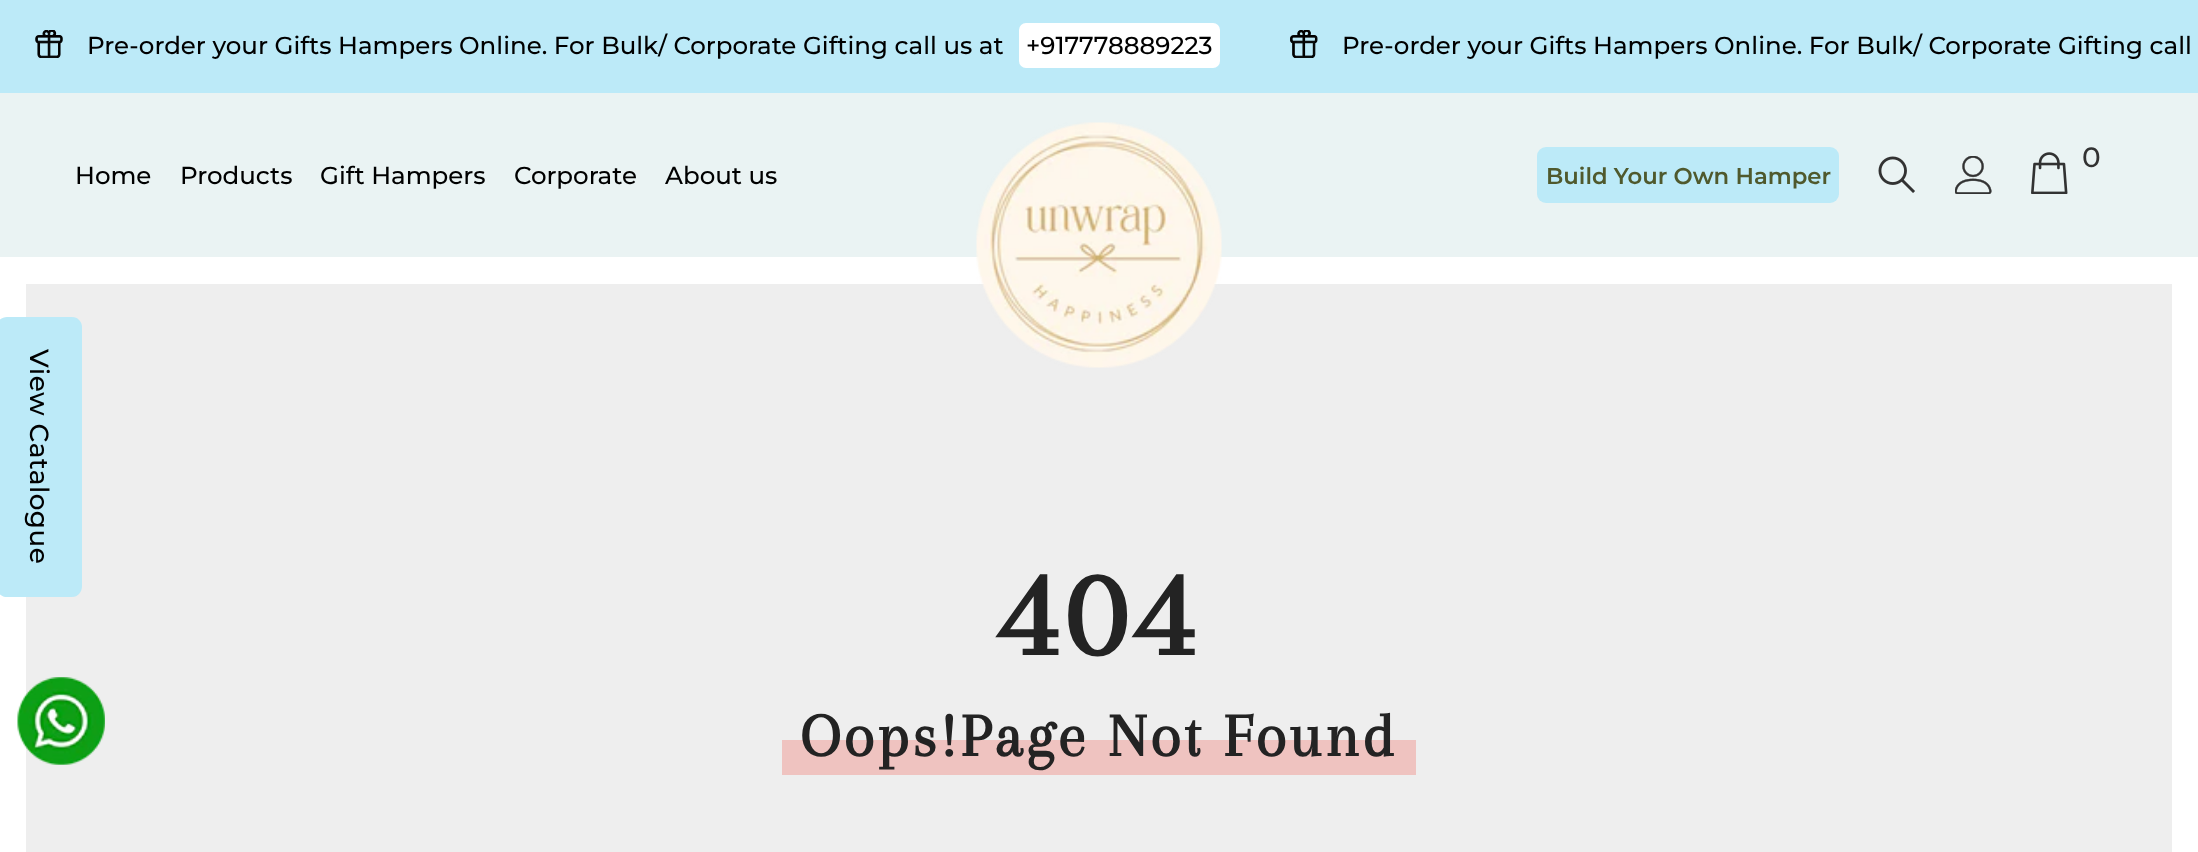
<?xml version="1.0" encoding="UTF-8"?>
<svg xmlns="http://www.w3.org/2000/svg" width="2198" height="852">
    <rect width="100%" height="100%" fill="#FFFFFF"/>
    <rect x="26" y="284" width="2146" height="568" fill="#EEEEEE"/>
    <path d="M 82 327 V 586 C 82 592 78 597 72 597 H 7 C 1 597 -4 592 -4 586 V 327 C -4 322 1 317 7 317 H 72 C 78 317 82 322 82 327 Z" fill="#BCEAF8"/>
    <text x="30" y="349" transform="rotate(90 30 349)" font-family="Montserrat" font-size="26.25" font-weight="500" letter-spacing="0.5" fill="#000000">View Catalogue</text>
    <rect x="0" y="0" width="2198" height="93" fill="#BCEAF8"/>
    <image x="35" y="30" width="28" height="28" href="img_01.png"/>
    <text x="87" y="54" font-family="Montserrat" font-size="24.5" font-weight="500" fill="#000000">Pre-order your Gifts Hampers Online. For Bulk/ Corporate Gifting call us at</text>
    <rect x="1019" y="23" width="201" height="45" rx="7" fill="#FFFFFF"/>
    <text x="1026" y="54" font-family="Montserrat" font-size="24.5" font-weight="500" fill="#000000">+917778889223</text>
    <image x="1290" y="30" width="28" height="28" href="img_02.png"/>
    <text x="1342" y="54" font-family="Montserrat" font-size="24.5" font-weight="500" fill="#000000">Pre-order your Gifts Hampers Online. For Bulk/ Corporate Gifting call</text>
    <rect x="0" y="93" width="2198" height="164" fill="#EAF3F3"/>
    <text x="75" y="184" font-family="Montserrat" font-size="24.5" font-weight="500" fill="#000000">Home</text>
    <text x="180" y="184" font-family="Montserrat" font-size="24.5" font-weight="500" fill="#000000">Products</text>
    <text x="320" y="184" font-family="Montserrat" font-size="24.5" font-weight="500" fill="#000000">Gift Hampers</text>
    <text x="514" y="184" font-family="Montserrat" font-size="24.5" font-weight="500" fill="#000000">Corporate</text>
    <text x="665" y="184" font-family="Montserrat" font-size="24.5" font-weight="500" fill="#000000">About us</text>
    <image x="976" y="122" width="246" height="246" href="img_03.png"/>
    <rect x="1537" y="147" width="302" height="56" rx="9" fill="#BCEAF8"/>
    <text x="1546" y="184" font-family="Montserrat" font-size="22.75" font-weight="600" fill="#4F592D">Build Your Own Hamper</text>
    <image x="1878" y="156" width="37" height="37" href="img_04.png"/>
    <image x="1955" y="156" width="37" height="38" href="img_05.png"/>
    <image x="2031" y="152" width="37" height="42" href="img_06.png"/>
    <text x="2082" y="167" font-family="Montserrat" font-size="28" font-weight="500" fill="#323232">0</text>
    <text x="997" y="655" font-family="Arapey" font-size="133" font-weight="700" letter-spacing="6.5" fill="#232323">404</text>
    <rect x="782" y="740" width="634" height="35" fill="#EFC3C0"/>
    <text x="800" y="756" font-family="Arapey" font-size="63" font-weight="700" letter-spacing="3.1" fill="#232323">Oops!Page Not Found</text>
    <image x="17" y="677" width="88" height="88" href="img_07.png"/>
</svg>
